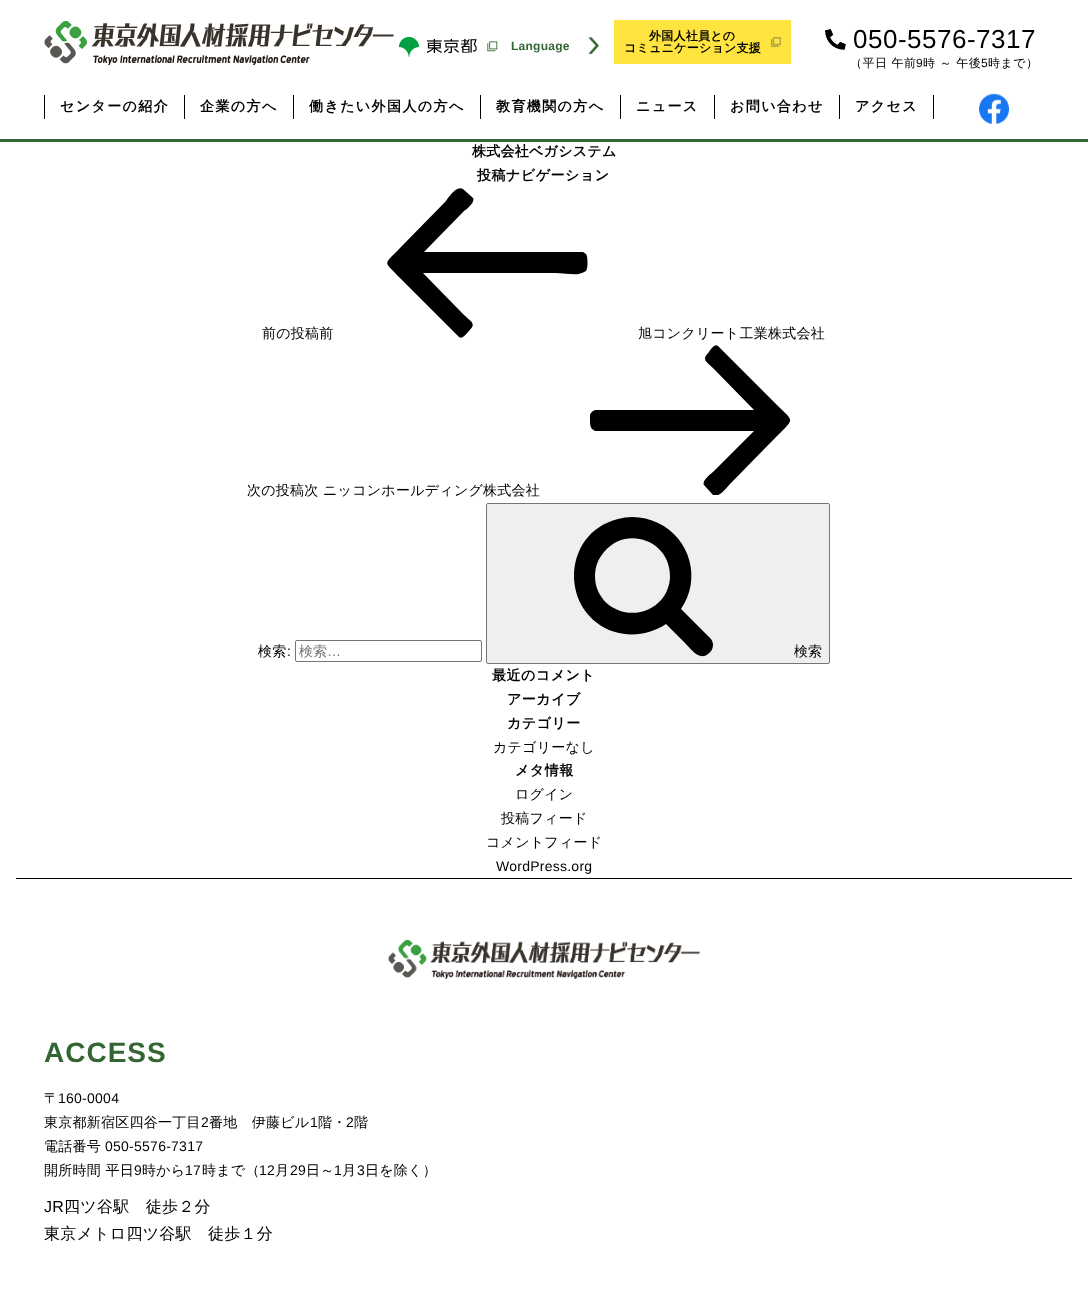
<?xml version="1.0" encoding="UTF-8"?>
<svg xmlns="http://www.w3.org/2000/svg" width="1088" height="1299">
    <defs>
        <clipPath id="clip1"><rect x="541" y="345" width="300" height="150"/></clipPath>
    </defs>
    <rect width="100%" height="100%" fill="#FFFFFF"/>
    <rect x="0" y="139" width="1088" height="3" fill="#336633"/>
    <image x="44" y="21" width="350" height="44" href="img_01.png"/>
    <image x="399" y="37" width="99" height="20" href="img_02.png"/>
    <text x="511" y="50" font-family="Liberation Sans" font-size="12" font-weight="700" letter-spacing="0.25" fill="#336633">Language</text>
    <image x="588" y="37" width="12" height="18" href="img_03.png"/>
    <rect x="614" y="20" width="177" height="44" fill="#FFE440"/>
    <text x="649" y="40" font-family="WenQuanYi Zen Hei" font-size="12" font-weight="700" letter-spacing="0.25" fill="#000000">外国人社員との</text>
    <image x="771" y="37" width="10" height="10" href="img_04.png"/>
    <text x="624" y="52" font-family="WenQuanYi Zen Hei" font-size="12" font-weight="700" letter-spacing="0.25" fill="#000000">コミュニケーション支援</text>
    <image x="825" y="29" width="21" height="21" href="img_05.png"/>
    <text x="853" y="48" font-family="Liberation Sans" font-size="26" letter-spacing="0.5" fill="#000000">050-5576-7317</text>
    <text x="850" y="67" font-family="WenQuanYi Zen Hei" font-size="12" font-weight="500" letter-spacing="0.5" fill="#000000">（平日 午前</text>
    <text x="916" y="67" font-family="Liberation Sans" font-size="12" letter-spacing="0.5" fill="#000000">9</text>
    <text x="923" y="67" font-family="WenQuanYi Zen Hei" font-size="12" font-weight="500" letter-spacing="0.5" fill="#000000">時 ～ 午後</text>
    <text x="981" y="67" font-family="Liberation Sans" font-size="12" letter-spacing="0.5" fill="#000000">5</text>
    <text x="988" y="67" font-family="WenQuanYi Zen Hei" font-size="12" font-weight="500" letter-spacing="0.5" fill="#000000">時まで）</text>
    <rect x="44" y="95" width="1" height="24" fill="#000000"/>
    <text x="60" y="111" font-family="WenQuanYi Zen Hei" font-size="14" font-weight="700" letter-spacing="1.4" fill="#000000">センターの紹介</text>
    <rect x="184" y="95" width="1" height="24" fill="#000000"/>
    <text x="200" y="111" font-family="WenQuanYi Zen Hei" font-size="14" font-weight="700" letter-spacing="1.4" fill="#000000">企業の方へ</text>
    <rect x="293" y="95" width="1" height="24" fill="#000000"/>
    <text x="309" y="111" font-family="WenQuanYi Zen Hei" font-size="14" font-weight="700" letter-spacing="1.4" fill="#000000">働きたい外国人の方へ</text>
    <rect x="480" y="95" width="1" height="24" fill="#000000"/>
    <text x="496" y="111" font-family="WenQuanYi Zen Hei" font-size="14" font-weight="700" letter-spacing="1.4" fill="#000000">教育機関の方へ</text>
    <rect x="620" y="95" width="1" height="24" fill="#000000"/>
    <text x="636" y="111" font-family="WenQuanYi Zen Hei" font-size="14" font-weight="700" letter-spacing="1.4" fill="#000000">ニュース</text>
    <rect x="714" y="95" width="1" height="24" fill="#000000"/>
    <text x="730" y="111" font-family="WenQuanYi Zen Hei" font-size="14" font-weight="700" letter-spacing="1.4" fill="#000000">お問い合わせ</text>
    <rect x="933" y="95" width="1" height="24" fill="#000000"/>
    <rect x="839" y="95" width="1" height="24" fill="#000000"/>
    <text x="855" y="111" font-family="WenQuanYi Zen Hei" font-size="14" font-weight="700" letter-spacing="1.4" fill="#000000">アクセス</text>
    <image x="979" y="93" width="30" height="31" href="img_06.png"/>
    <text x="472" y="156" font-family="WenQuanYi Zen Hei" font-size="14" font-weight="700" letter-spacing="0.25" fill="#000000">株式会社ベガシステム</text>
    <text x="477" y="180" font-family="WenQuanYi Zen Hei" font-size="14" font-weight="700" letter-spacing="0.5" fill="#000000">投稿ナビゲーション</text>
    <text x="262" y="338" font-family="WenQuanYi Zen Hei" font-size="14" font-weight="500" letter-spacing="0.25" fill="#000000">前の投稿前</text>
    <text x="638" y="338" font-family="WenQuanYi Zen Hei" font-size="14" font-weight="500" letter-spacing="0.25" fill="#000000">旭コンクリート工業株式会社</text>
    <path d="M 586 254 L 583 252 H 424 L 464 211 C 465 211 476 202 473 198 L 463 189 C 456 185 447 200 446 201 L 400 248 C 383 266 383 260 400 278 L 459 337 C 462 340 467 333 469 331 C 477 323 471 322 463 314 L 423 273 H 555 C 569 273 577 277 586 271 C 588 269 588 256 586 254 Z" fill="#000000"/>
    <text x="247" y="495" font-family="WenQuanYi Zen Hei" font-size="14" font-weight="500" letter-spacing="0.25" fill="#000000">次の投稿次 ニッコンホールディング株式会社</text>
    <g clip-path="url(#clip1)">
        <path d="M 592 429 L 595 431 H 754 L 713 472 C 713 472 701 481 704 485 L 713 495 C 720 499 730 483 731 483 L 777 436 C 795 418 794 422 777 405 L 718 346 C 715 343 710 350 709 352 C 701 360 706 361 714 369 L 754 410 H 595 C 589 413 590 415 590 420 C 590 423 590 427 592 429 Z" fill="#000000"/>
    </g>
    <text x="258" y="656" font-family="WenQuanYi Zen Hei" font-size="14" font-weight="500" letter-spacing="0.25" fill="#000000">検索</text>
    <text x="287" y="656" font-family="Liberation Sans" font-size="14" letter-spacing="0.25" fill="#000000">:</text>
    <rect x="295.5" y="640.5" width="186" height="21" rx="1.5" fill="none" stroke="#767676"/>
    <text x="299" y="656" font-family="WenQuanYi Zen Hei" font-size="14" font-weight="500" fill="#757575">検索</text>
    <text x="327" y="656" font-family="Liberation Sans" font-size="14" fill="#757575">…</text>
    <rect x="486.5" y="503.5" width="343" height="160" rx="1.5" fill="#EFEFEF" stroke="#767676"/>
    <path d="M 670 576 C 670 540 626 525 604 552 C 598 559 595 567 595 576 C 595 611 639 626 662 599 C 667 593 670 584 670 576 Z M 713 645 C 713 649 711 652 708 654 C 699 661 691 649 685 643 L 666 624 C 651 634 632 637 615 632 C 559 614 561 533 618 519 C 631 515 646 517 658 523 C 690 538 702 579 681 609 L 710 638 C 712 640 713 642 713 645 Z" fill="#000000"/>
    <text x="794" y="656" font-family="WenQuanYi Zen Hei" font-size="14" font-weight="500" fill="#000000">検索</text>
    <text x="492" y="680" font-family="WenQuanYi Zen Hei" font-size="14" font-weight="700" letter-spacing="0.5" fill="#000000">最近のコメント</text>
    <text font-family="WenQuanYi Zen Hei" font-size="14" font-weight="700" letter-spacing="0.5" fill="#000000">
        <tspan x="507" y="704">アーカイブ</tspan>
        <tspan x="507" y="728">カテゴリー</tspan>
    </text>
    <text x="493" y="752" font-family="WenQuanYi Zen Hei" font-size="14" font-weight="500" letter-spacing="0.25" fill="#000000">カテゴリーなし</text>
    <text x="515" y="775" font-family="WenQuanYi Zen Hei" font-size="14" font-weight="700" letter-spacing="0.5" fill="#000000">メタ情報</text>
    <text x="515" y="799" font-family="WenQuanYi Zen Hei" font-size="14" font-weight="500" letter-spacing="0.25" fill="#000000">ログイン</text>
    <text x="501" y="823" font-family="WenQuanYi Zen Hei" font-size="14" font-weight="500" letter-spacing="0.25" fill="#000000">投稿フィード</text>
    <text x="486" y="847" font-family="WenQuanYi Zen Hei" font-size="14" font-weight="500" letter-spacing="0.25" fill="#000000">コメントフィード</text>
    <text x="496" y="871" font-family="Liberation Sans" font-size="14" letter-spacing="0.25" fill="#000000">WordPress.org</text>
    <rect x="16" y="878" width="1056" height="1" fill="#000000"/>
    <image x="388" y="939" width="312" height="40" href="img_07.png"/>
    <text x="44" y="1062" font-family="Liberation Sans" font-size="28" font-weight="700" letter-spacing="1" fill="#336633">ACCESS</text>
    <text x="44" y="1103" font-family="WenQuanYi Zen Hei" font-size="14" font-weight="500" letter-spacing="0.25" fill="#000000">〒</text>
    <text x="58" y="1103" font-family="Liberation Sans" font-size="14" letter-spacing="0.25" fill="#000000">160-0004</text>
    <text x="44" y="1127" font-family="WenQuanYi Zen Hei" font-size="14" font-weight="500" letter-spacing="0.25" fill="#000000">東京都新宿区四谷一丁目</text>
    <text x="201" y="1127" font-family="Liberation Sans" font-size="14" letter-spacing="0.25" fill="#000000">2</text>
    <text x="209" y="1127" font-family="WenQuanYi Zen Hei" font-size="14" font-weight="500" letter-spacing="0.25" fill="#000000">番地　伊藤ビル</text>
    <text x="310" y="1127" font-family="Liberation Sans" font-size="14" letter-spacing="0.25" fill="#000000">1</text>
    <text x="318" y="1127" font-family="WenQuanYi Zen Hei" font-size="14" font-weight="500" letter-spacing="0.25" fill="#000000">階・</text>
    <text x="346" y="1127" font-family="Liberation Sans" font-size="14" letter-spacing="0.25" fill="#000000">2</text>
    <text x="354" y="1127" font-family="WenQuanYi Zen Hei" font-size="14" font-weight="500" letter-spacing="0.25" fill="#000000">階</text>
    <text x="44" y="1151" font-family="WenQuanYi Zen Hei" font-size="14" font-weight="500" letter-spacing="0.25" fill="#000000">電話番号</text>
    <text x="105" y="1151" font-family="Liberation Sans" font-size="14" letter-spacing="0.25" fill="#000000">050-5576-7317</text>
    <text x="44" y="1175" font-family="WenQuanYi Zen Hei" font-size="14" font-weight="500" letter-spacing="0.25" fill="#000000">開所時間 平日</text>
    <text x="134" y="1175" font-family="Liberation Sans" font-size="14" letter-spacing="0.25" fill="#000000">9</text>
    <text x="142" y="1175" font-family="WenQuanYi Zen Hei" font-size="14" font-weight="500" letter-spacing="0.25" fill="#000000">時から</text>
    <text x="185" y="1175" font-family="Liberation Sans" font-size="14" letter-spacing="0.25" fill="#000000">17</text>
    <text x="202" y="1175" font-family="WenQuanYi Zen Hei" font-size="14" font-weight="500" letter-spacing="0.25" fill="#000000">時まで（</text>
    <text x="259" y="1175" font-family="Liberation Sans" font-size="14" letter-spacing="0.25" fill="#000000">12</text>
    <text x="275" y="1175" font-family="WenQuanYi Zen Hei" font-size="14" font-weight="500" letter-spacing="0.25" fill="#000000">月</text>
    <text x="290" y="1175" font-family="Liberation Sans" font-size="14" letter-spacing="0.25" fill="#000000">29</text>
    <text x="306" y="1175" font-family="WenQuanYi Zen Hei" font-size="14" font-weight="500" letter-spacing="0.25" fill="#000000">日～</text>
    <text x="334" y="1175" font-family="Liberation Sans" font-size="14" letter-spacing="0.25" fill="#000000">1</text>
    <text x="342" y="1175" font-family="WenQuanYi Zen Hei" font-size="14" font-weight="500" letter-spacing="0.25" fill="#000000">月</text>
    <text x="357" y="1175" font-family="Liberation Sans" font-size="14" letter-spacing="0.25" fill="#000000">3</text>
    <text x="365" y="1175" font-family="WenQuanYi Zen Hei" font-size="14" font-weight="500" letter-spacing="0.25" fill="#000000">日を除く）</text>
    <text x="44" y="1212" font-family="Liberation Sans" font-size="16" letter-spacing="0.25" fill="#000000">JR</text>
    <text x="64" y="1212" font-family="WenQuanYi Zen Hei" font-size="16" font-weight="500" letter-spacing="0.25" fill="#000000">四ツ谷駅　徒歩２分</text>
    <text x="44" y="1239" font-family="WenQuanYi Zen Hei" font-size="16" font-weight="500" letter-spacing="0.25" fill="#000000">東京メトロ四ツ谷駅　徒歩１分</text>
</svg>
